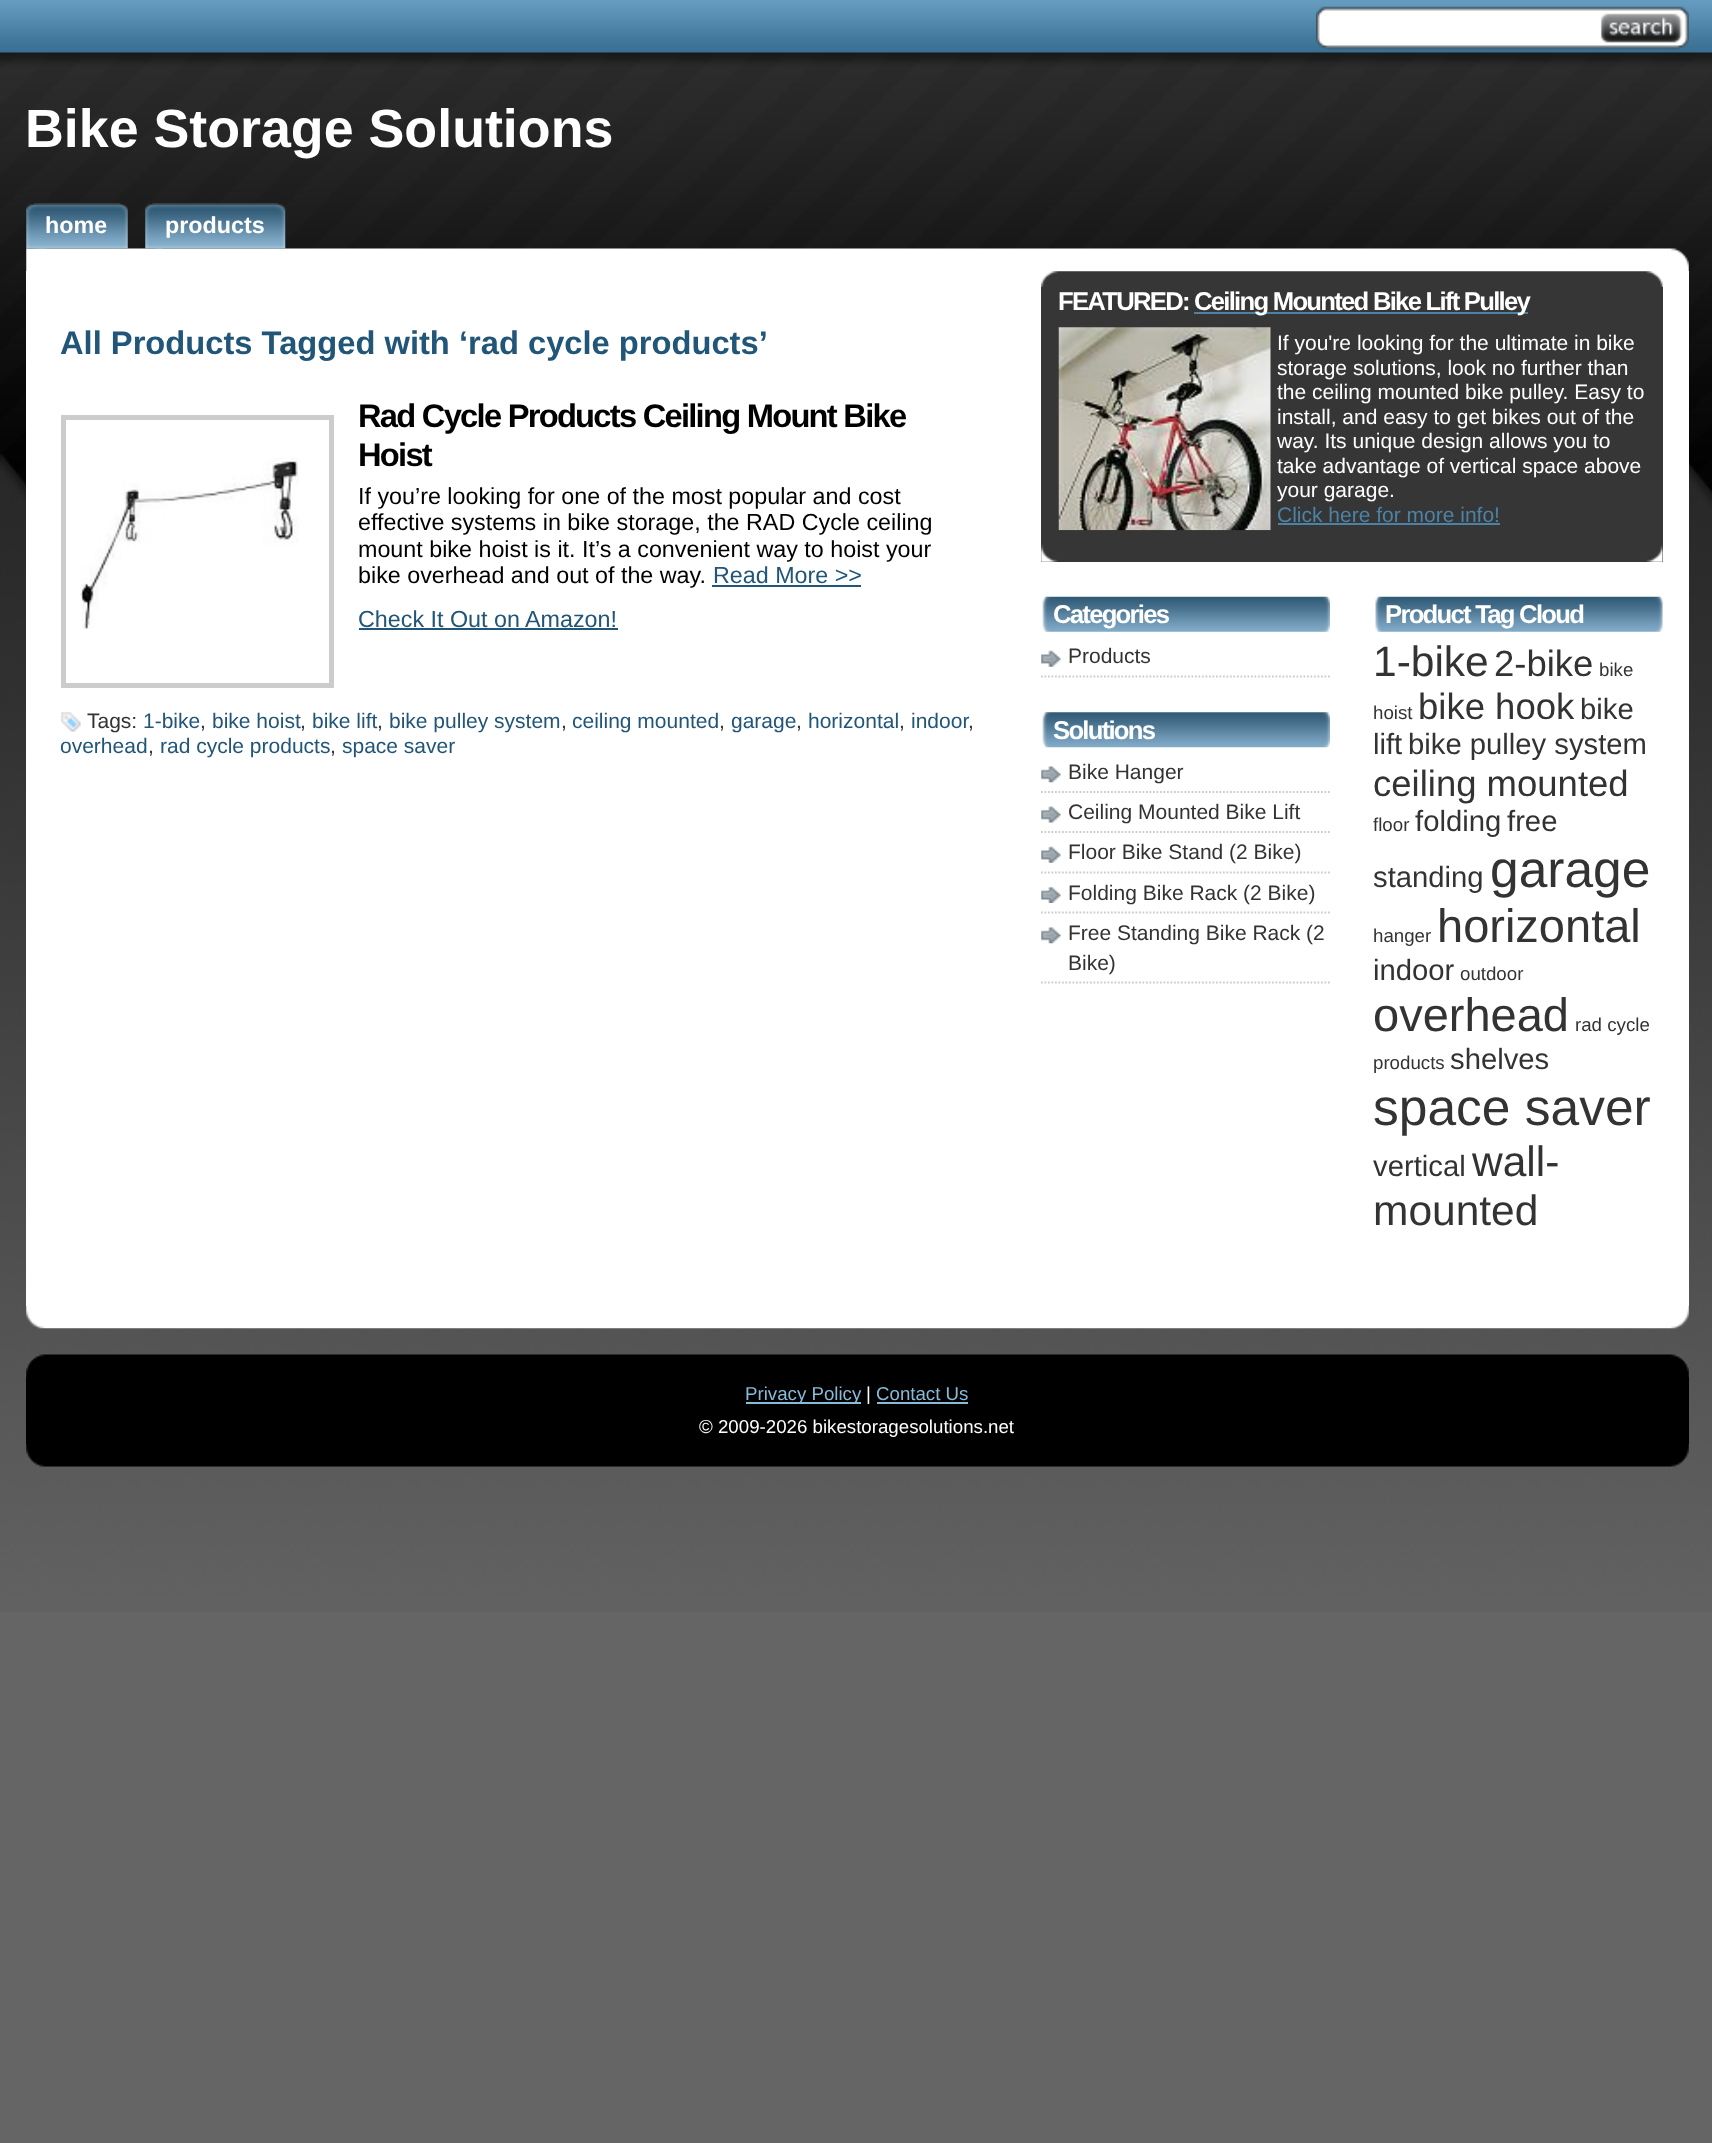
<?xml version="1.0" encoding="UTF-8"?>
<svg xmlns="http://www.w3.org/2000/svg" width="1712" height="2143">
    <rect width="100%" height="100%" fill="#656565"/>
    <image x="0" y="0" width="1712" height="1612" href="img_01.png"/>
    <image x="1316" y="6" width="373" height="44" href="img_02.png"/>
    <text x="25" y="147" font-family="Liberation Sans" font-size="53.75" font-weight="700" fill="#FFFFFF">Bike Storage Solutions</text>
    <image x="26" y="248" width="1663" height="23" href="img_07.png"/>
    <image x="26" y="203" width="20" height="46" href="img_03.png"/>
    <image x="36" y="203" width="92" height="46" href="img_04.png"/>
    <text x="45" y="233" font-family="Liberation Sans" font-size="23.3" font-weight="700" fill="#FFFFFF">home</text>
    <image x="145" y="203" width="18" height="46" href="img_05.png"/>
    <image x="155" y="203" width="131" height="46" href="img_06.png"/>
    <text x="165" y="233" font-family="Liberation Sans" font-size="23.3" font-weight="700" fill="#FFFFFF">products</text>
    <rect x="26" y="271" width="1663" height="1035" fill="#FFFFFF"/>
    <text x="60" y="354" font-family="Liberation Sans" font-size="32.7" font-weight="700" fill="#215679">All Products Tagged with ‘rad cycle products’</text>
    <rect x="63.5" y="417.5" width="268" height="268" fill="none" stroke="#CCCCCC" stroke-width="5"/>
    <image x="80" y="458" width="219" height="171" href="img_08.png"/>
    <text font-family="Liberation Sans" font-size="32.7" font-weight="700" letter-spacing="-1.75" fill="#000000">
        <tspan x="358" y="427">Rad Cycle Products Ceiling Mount Bike</tspan>
        <tspan x="358" y="466">Hoist</tspan>
    </text>
    <text font-family="Liberation Sans" font-size="23.3" fill="#000000">
        <tspan x="358" y="504">If you’re looking for one of the most popular and cost</tspan>
        <tspan x="358" y="530">effective systems in bike storage, the RAD Cycle ceiling</tspan>
        <tspan x="358" y="557">mount bike hoist is it. It’s a convenient way to hoist your</tspan>
        <tspan x="358" y="583">bike overhead and out of the way.</tspan>
    </text>
    <text x="713" y="583" font-family="Liberation Sans" font-size="23.3" fill="#215679">Read More &gt;&gt;</text>
    <rect x="712" y="585" width="149" height="2" fill="#215679"/>
    <text x="358" y="627" font-family="Liberation Sans" font-size="23.3" fill="#215679">Check It Out on Amazon!</text>
    <rect x="359" y="628" width="259" height="2" fill="#215679"/>
    <image x="61" y="712" width="20" height="20" href="img_09.png"/>
    <text x="87" y="728" font-family="Liberation Sans" font-size="21" fill="#333333">Tags:</text>
    <text x="143" y="728" font-family="Liberation Sans" font-size="21" fill="#215679">1-bike</text>
    <text x="200" y="728" font-family="Liberation Sans" font-size="21" fill="#333333">,</text>
    <text x="212" y="728" font-family="Liberation Sans" font-size="21" fill="#215679">bike hoist</text>
    <text x="300" y="728" font-family="Liberation Sans" font-size="21" fill="#333333">,</text>
    <text x="312" y="728" font-family="Liberation Sans" font-size="21" fill="#215679">bike lift</text>
    <text x="377" y="728" font-family="Liberation Sans" font-size="21" fill="#333333">,</text>
    <text x="389" y="728" font-family="Liberation Sans" font-size="21" fill="#215679">bike pulley system</text>
    <text x="561" y="728" font-family="Liberation Sans" font-size="21" fill="#333333">,</text>
    <text x="572" y="728" font-family="Liberation Sans" font-size="21" fill="#215679">ceiling mounted</text>
    <text x="719" y="728" font-family="Liberation Sans" font-size="21" fill="#333333">,</text>
    <text x="731" y="728" font-family="Liberation Sans" font-size="21" fill="#215679">garage</text>
    <text x="796" y="728" font-family="Liberation Sans" font-size="21" fill="#333333">,</text>
    <text x="808" y="728" font-family="Liberation Sans" font-size="21" fill="#215679">horizontal</text>
    <text x="899" y="728" font-family="Liberation Sans" font-size="21" fill="#333333">,</text>
    <text x="911" y="728" font-family="Liberation Sans" font-size="21" fill="#215679">indoor</text>
    <text x="968" y="728" font-family="Liberation Sans" font-size="21" fill="#333333">,</text>
    <text x="60" y="753" font-family="Liberation Sans" font-size="21" fill="#215679">overhead</text>
    <text x="148" y="753" font-family="Liberation Sans" font-size="21" fill="#333333">,</text>
    <text x="160" y="753" font-family="Liberation Sans" font-size="21" fill="#215679">rad cycle products</text>
    <text x="330" y="753" font-family="Liberation Sans" font-size="21" fill="#333333">,</text>
    <text x="342" y="753" font-family="Liberation Sans" font-size="21" fill="#215679">space saver</text>
    <image x="1041" y="271" width="622" height="16" href="img_10.png"/>
    <rect x="1041" y="287" width="622" height="275" fill="#363636"/>
    <text x="1058" y="310" font-family="Liberation Sans" font-size="25.7" font-weight="700" letter-spacing="-1.75" fill="#FFFFFF">FEATURED:</text>
    <rect x="1194" y="312" width="334" height="2" fill="#4C82A6"/>
    <text x="1194" y="310" font-family="Liberation Sans" font-size="25.7" font-weight="700" letter-spacing="-1.75" fill="#FFFFFF">Ceiling Mounted Bike Lift Pulley</text>
    <image x="1058" y="327" width="213" height="204" href="img_11.png"/>
    <text font-family="Liberation Sans" font-size="21" fill="#FFFFFF">
        <tspan x="1277" y="350">If you're looking for the ultimate in bike</tspan>
        <tspan x="1277" y="375">storage solutions, look no further than</tspan>
        <tspan x="1277" y="399">the ceiling mounted bike pulley. Easy to</tspan>
        <tspan x="1277" y="424">install, and easy to get bikes out of the</tspan>
        <tspan x="1277" y="448">way. Its unique design allows you to</tspan>
        <tspan x="1277" y="473">take advantage of vertical space above</tspan>
        <tspan x="1277" y="497">your garage.</tspan>
    </text>
    <text x="1277" y="522" font-family="Liberation Sans" font-size="21" fill="#4C82A6">Click here for more info!</text>
    <rect x="1278" y="523" width="222" height="2" fill="#4C82A6"/>
    <image x="1041" y="530" width="622" height="32" href="img_12.png"/>
    <image x="1042" y="596" width="288" height="36" href="img_13.png"/>
    <text x="1053" y="623" font-family="Liberation Sans" font-size="25.7" font-weight="700" letter-spacing="-1.75" fill="#FFFFFF">Categories</text>
    <image x="1041" y="650" width="20" height="17" href="img_14.png"/>
    <path d="M 1041 676.5 H 1330" fill="none" stroke="#CCCCCC" stroke-width="1.8" stroke-dasharray="1.75 1.75"/>
    <text x="1068" y="663" font-family="Liberation Sans" font-size="21" fill="#333333">Products</text>
    <image x="1042" y="712" width="288" height="36" href="img_15.png"/>
    <text x="1053" y="739" font-family="Liberation Sans" font-size="25.7" font-weight="700" letter-spacing="-1.75" fill="#FFFFFF">Solutions</text>
    <image x="1041" y="766" width="20" height="17" href="img_16.png"/>
    <path d="M 1041 792 H 1330" fill="none" stroke="#CCCCCC" stroke-width="1.8" stroke-dasharray="1.75 1.75"/>
    <text x="1068" y="779" font-family="Liberation Sans" font-size="21" fill="#333333">Bike Hanger</text>
    <image x="1041" y="806" width="20" height="17" href="img_17.png"/>
    <path d="M 1041 832 H 1330" fill="none" stroke="#CCCCCC" stroke-width="1.8" stroke-dasharray="1.75 1.75"/>
    <text x="1068" y="819" font-family="Liberation Sans" font-size="21" fill="#333333">Ceiling Mounted Bike Lift</text>
    <image x="1041" y="846" width="20" height="17" href="img_14.png"/>
    <path d="M 1041 872.5 H 1330" fill="none" stroke="#CCCCCC" stroke-width="1.8" stroke-dasharray="1.75 1.75"/>
    <text x="1068" y="859" font-family="Liberation Sans" font-size="21" fill="#333333">Floor Bike Stand (2 Bike)</text>
    <image x="1041" y="886" width="20" height="17" href="img_18.png"/>
    <path d="M 1041 912.5 H 1330" fill="none" stroke="#CCCCCC" stroke-width="1.8" stroke-dasharray="1.75 1.75"/>
    <text x="1068" y="900" font-family="Liberation Sans" font-size="21" fill="#333333">Folding Bike Rack (2 Bike)</text>
    <image x="1041" y="927" width="20" height="17" href="img_16.png"/>
    <path d="M 1041 982.5 H 1330" fill="none" stroke="#CCCCCC" stroke-width="1.8" stroke-dasharray="1.75 1.75"/>
    <text font-family="Liberation Sans" font-size="21" fill="#333333">
        <tspan x="1068" y="940">Free Standing Bike Rack (2</tspan>
        <tspan x="1068" y="970">Bike)</tspan>
    </text>
    <image x="1375" y="596" width="288" height="36" href="img_19.png"/>
    <text x="1385" y="623" font-family="Liberation Sans" font-size="25.7" font-weight="700" letter-spacing="-1.75" fill="#FFFFFF">Product Tag Cloud</text>
    <text x="1373" y="676" font-family="Liberation Sans" font-size="42.5" fill="#333333">1-bike</text>
    <text x="1494" y="676" font-family="Liberation Sans" font-size="36.5" fill="#333333">2-bike</text>
    <text x="1599" y="676" font-family="Liberation Sans" font-size="18.7" fill="#333333">bike</text>
    <text x="1373" y="719" font-family="Liberation Sans" font-size="18.7" fill="#333333">hoist</text>
    <text x="1418" y="719" font-family="Liberation Sans" font-size="36.5" fill="#333333">bike hook</text>
    <text x="1580" y="719" font-family="Liberation Sans" font-size="29.25" fill="#333333">bike</text>
    <text x="1373" y="754" font-family="Liberation Sans" font-size="29.25" fill="#333333">lift</text>
    <text x="1408" y="754" font-family="Liberation Sans" font-size="29.25" fill="#333333">bike pulley system</text>
    <text x="1373" y="796" font-family="Liberation Sans" font-size="36.5" fill="#333333">ceiling mounted</text>
    <text x="1373" y="831" font-family="Liberation Sans" font-size="18.7" fill="#333333">floor</text>
    <text x="1415" y="831" font-family="Liberation Sans" font-size="29.25" fill="#333333">folding</text>
    <text x="1507" y="831" font-family="Liberation Sans" font-size="29.25" fill="#333333">free</text>
    <text x="1373" y="887" font-family="Liberation Sans" font-size="29.25" fill="#333333">standing</text>
    <text x="1490" y="887" font-family="Liberation Sans" font-size="51.5" fill="#333333">garage</text>
    <text x="1373" y="942" font-family="Liberation Sans" font-size="18.7" fill="#333333">hanger</text>
    <text x="1437" y="942" font-family="Liberation Sans" font-size="47" fill="#333333">horizontal</text>
    <text x="1373" y="980" font-family="Liberation Sans" font-size="29.25" fill="#333333">indoor</text>
    <text x="1460" y="980" font-family="Liberation Sans" font-size="18.7" fill="#333333">outdoor</text>
    <text x="1373" y="1031" font-family="Liberation Sans" font-size="47" fill="#333333">overhead</text>
    <text x="1575" y="1031" font-family="Liberation Sans" font-size="18.7" fill="#333333">rad cycle</text>
    <text x="1373" y="1069" font-family="Liberation Sans" font-size="18.7" fill="#333333">products</text>
    <text x="1450" y="1069" font-family="Liberation Sans" font-size="29.25" fill="#333333">shelves</text>
    <text x="1373" y="1125" font-family="Liberation Sans" font-size="51.5" fill="#333333">space saver</text>
    <text x="1373" y="1176" font-family="Liberation Sans" font-size="29.25" fill="#333333">vertical</text>
    <text x="1472" y="1176" font-family="Liberation Sans" font-size="42.5" fill="#333333">wall-</text>
    <text x="1373" y="1225" font-family="Liberation Sans" font-size="42.5" fill="#333333">mounted</text>
    <image x="26" y="1306" width="1663" height="23" href="img_20.png"/>
    <image x="26" y="1354" width="1663" height="23" href="img_21.png"/>
    <rect x="26" y="1377" width="1663" height="67" fill="#000000"/>
    <rect x="746" y="1402" width="115" height="2" fill="#87BBD9"/>
    <text x="745" y="1400" font-family="Liberation Sans" font-size="18.7" fill="#87BBD9">Privacy Policy</text>
    <text x="866" y="1400" font-family="Liberation Sans" font-size="18.7" fill="#FFFFFF">|</text>
    <text x="876" y="1400" font-family="Liberation Sans" font-size="18.7" fill="#87BBD9">Contact Us</text>
    <rect x="877" y="1402" width="91" height="2" fill="#87BBD9"/>
    <text x="699" y="1433" font-family="Liberation Sans" font-size="18.7" fill="#FFFFFF">© 2009-2026 bikestoragesolutions.net</text>
    <image x="26" y="1444" width="1663" height="23" href="img_22.png"/>
</svg>
